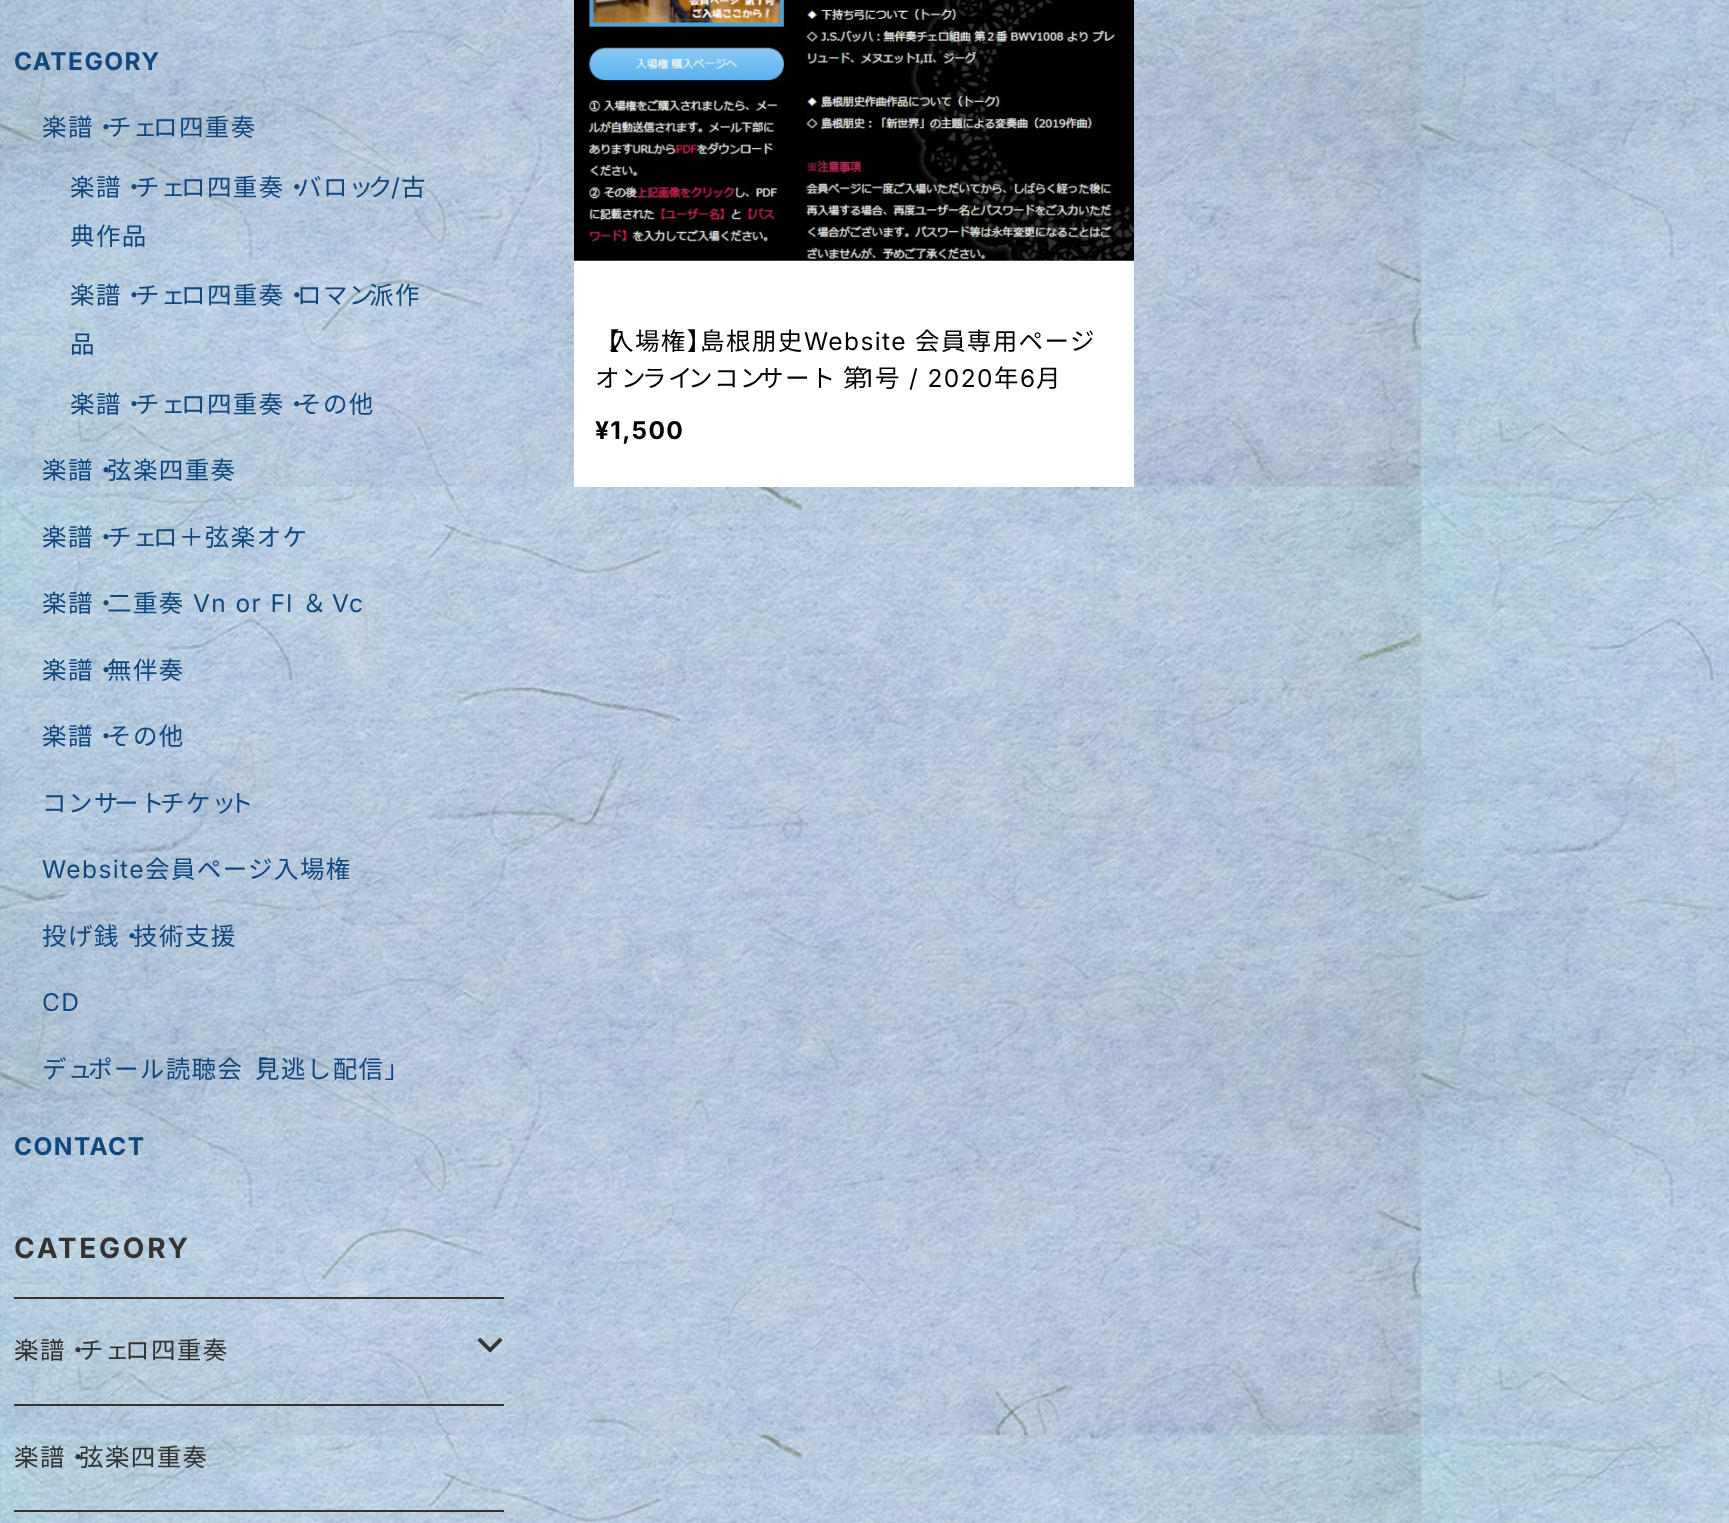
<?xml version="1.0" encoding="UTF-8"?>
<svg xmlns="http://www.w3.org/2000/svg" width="1729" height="1523">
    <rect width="100%" height="100%" fill="#FFFFFF"/>
    <image x="0" y="0" width="1729" height="1523" href="img_01.png"/>
    <text x="14" y="70" font-family="Inter" font-size="24.5" font-weight="700" letter-spacing="1.4" fill="#10477D">CATEGORY</text>
    <text x="42" y="136" font-family="Noto Sans JP" font-size="24.5" letter-spacing="1.4" fill="#10477D">楽譜・</text>
    <text x="107" y="136" font-family="Noto Sans JP" font-size="24.5" letter-spacing="1.4" fill="#10477D">チェ</text>
    <text x="153" y="136" font-family="Noto Sans JP" font-size="24.5" letter-spacing="1.4" fill="#10477D">ロ四重奏</text>
    <text x="70" y="196" font-family="Noto Sans JP" font-size="24.5" letter-spacing="1.4" fill="#10477D">楽譜・</text>
    <text x="135" y="196" font-family="Noto Sans JP" font-size="24.5" letter-spacing="1.4" fill="#10477D">チェ</text>
    <text x="181" y="196" font-family="Noto Sans JP" font-size="24.5" letter-spacing="1.4" fill="#10477D">ロ四重奏・</text>
    <text x="297" y="196" font-family="Noto Sans JP" font-size="24.5" letter-spacing="1.4" fill="#10477D">バロッ</text>
    <text x="368" y="196" font-family="Noto Sans JP" font-size="24.5" letter-spacing="1.4" fill="#10477D">ク</text>
    <text x="391" y="196" font-family="Inter" font-size="24.5" letter-spacing="1.4" fill="#10477D">/</text>
    <text x="401" y="196" font-family="Noto Sans JP" font-size="24.5" letter-spacing="1.4" fill="#10477D">古</text>
    <text x="70" y="245" font-family="Noto Sans JP" font-size="24.5" letter-spacing="1.4" fill="#10477D">典作品</text>
    <text x="70" y="304" font-family="Noto Sans JP" font-size="24.5" letter-spacing="1.4" fill="#10477D">楽譜・</text>
    <text x="135" y="304" font-family="Noto Sans JP" font-size="24.5" letter-spacing="1.4" fill="#10477D">チェ</text>
    <text x="181" y="304" font-family="Noto Sans JP" font-size="24.5" letter-spacing="1.4" fill="#10477D">ロ四重奏・</text>
    <text x="297" y="304" font-family="Noto Sans JP" font-size="24.5" letter-spacing="1.4" fill="#10477D">ロマン</text>
    <text x="369" y="304" font-family="Noto Sans JP" font-size="24.5" letter-spacing="1.4" fill="#10477D">派作</text>
    <text x="70" y="353" font-family="Noto Sans JP" font-size="24.5" letter-spacing="1.4" fill="#10477D">品</text>
    <text x="70" y="413" font-family="Noto Sans JP" font-size="24.5" letter-spacing="1.4" fill="#10477D">楽譜・</text>
    <text x="135" y="413" font-family="Noto Sans JP" font-size="24.5" letter-spacing="1.4" fill="#10477D">チェ</text>
    <text x="181" y="413" font-family="Noto Sans JP" font-size="24.5" letter-spacing="1.4" fill="#10477D">ロ四重奏・</text>
    <text x="297" y="413" font-family="Noto Sans JP" font-size="24.5" letter-spacing="1.4" fill="#10477D">その他</text>
    <text x="42" y="479" font-family="Noto Sans JP" font-size="24.5" letter-spacing="1.4" fill="#10477D">楽譜・</text>
    <text x="107" y="479" font-family="Noto Sans JP" font-size="24.5" letter-spacing="1.4" fill="#10477D">弦楽四重奏</text>
    <text x="42" y="546" font-family="Noto Sans JP" font-size="24.5" letter-spacing="1.4" fill="#10477D">楽譜・</text>
    <text x="107" y="546" font-family="Noto Sans JP" font-size="24.5" letter-spacing="1.4" fill="#10477D">チェ</text>
    <text x="153" y="546" font-family="Noto Sans JP" font-size="24.5" letter-spacing="1.4" fill="#10477D">ロ＋弦楽オケ</text>
    <text x="42" y="612" font-family="Noto Sans JP" font-size="24.5" letter-spacing="1.4" fill="#10477D">楽譜・</text>
    <text x="107" y="612" font-family="Noto Sans JP" font-size="24.5" letter-spacing="1.4" fill="#10477D">二重奏</text>
    <text x="193" y="612" font-family="Inter" font-size="24.5" letter-spacing="1.4" fill="#10477D">Vn or Fl</text>
    <text x="302" y="612" font-family="Noto Sans JP" font-size="24.5" letter-spacing="1.4" fill="#10477D">＆</text>
    <text x="332" y="612" font-family="Inter" font-size="24.5" letter-spacing="1.4" fill="#10477D">Vc</text>
    <text x="42" y="679" font-family="Noto Sans JP" font-size="24.5" letter-spacing="1.4" fill="#10477D">楽譜・</text>
    <text x="107" y="679" font-family="Noto Sans JP" font-size="24.5" letter-spacing="1.4" fill="#10477D">無伴奏</text>
    <text x="42" y="745" font-family="Noto Sans JP" font-size="24.5" letter-spacing="1.4" fill="#10477D">楽譜・</text>
    <text x="107" y="745" font-family="Noto Sans JP" font-size="24.5" letter-spacing="1.4" fill="#10477D">その他</text>
    <text x="42" y="812" font-family="Noto Sans JP" font-size="24.5" letter-spacing="1.4" fill="#10477D">コンサ</text>
    <text x="114" y="812" font-family="Noto Sans JP" font-size="24.5" letter-spacing="1.4" fill="#10477D">ート</text>
    <text x="160" y="812" font-family="Noto Sans JP" font-size="24.5" letter-spacing="1.4" fill="#10477D">チケッ</text>
    <text x="229" y="812" font-family="Noto Sans JP" font-size="24.5" letter-spacing="1.4" fill="#10477D">ト</text>
    <text x="42" y="878" font-family="Inter" font-size="24.5" letter-spacing="1.4" fill="#10477D">Website</text>
    <text x="145" y="878" font-family="Noto Sans JP" font-size="24.5" letter-spacing="1.4" fill="#10477D">会員ページ入場権</text>
    <text x="42" y="945" font-family="Noto Sans JP" font-size="24.5" letter-spacing="1.4" fill="#10477D">投げ銭・</text>
    <text x="133" y="945" font-family="Noto Sans JP" font-size="24.5" letter-spacing="1.4" fill="#10477D">技術支援</text>
    <text x="42" y="1011" font-family="Inter" font-size="24.5" letter-spacing="1.4" fill="#10477D">CD</text>
    <text x="42" y="1078" font-family="Noto Sans JP" font-size="24.5" letter-spacing="1.4" fill="#10477D">デュ</text>
    <text x="88" y="1078" font-family="Noto Sans JP" font-size="24.5" letter-spacing="1.4" fill="#10477D">ポール読聴会「</text>
    <text x="255" y="1078" font-family="Noto Sans JP" font-size="24.5" letter-spacing="1.4" fill="#10477D">見逃し配信」</text>
    <text x="14" y="1155" font-family="Inter" font-size="24.5" font-weight="700" letter-spacing="1.4" fill="#10477D">CONTACT</text>
    <text x="14" y="1258" font-family="Inter" font-size="28" font-weight="700" letter-spacing="2.75" fill="#333333">CATEGORY</text>
    <rect x="14" y="1297" width="490" height="2" fill="#333333"/>
    <text x="14" y="1359" font-family="Noto Sans JP" font-size="24.5" letter-spacing="1.4" fill="#333333">楽譜・</text>
    <text x="79" y="1359" font-family="Noto Sans JP" font-size="24.5" letter-spacing="1.4" fill="#333333">チェ</text>
    <text x="125" y="1359" font-family="Noto Sans JP" font-size="24.5" letter-spacing="1.4" fill="#333333">ロ四重奏</text>
    <image x="477" y="1337" width="26" height="16" href="img_02.png"/>
    <rect x="14" y="1404" width="490" height="2" fill="#333333"/>
    <text x="14" y="1466" font-family="Noto Sans JP" font-size="24.5" letter-spacing="1.4" fill="#333333">楽譜・</text>
    <text x="79" y="1466" font-family="Noto Sans JP" font-size="24.5" letter-spacing="1.4" fill="#333333">弦楽四重奏</text>
    <rect x="14" y="1510" width="490" height="2" fill="#333333"/>
    <rect x="574" y="260" width="560" height="227" fill="#FFFFFF"/>
    <image x="574" y="0" width="560" height="261" href="img_03.png"/>
    <text x="595" y="350" font-family="Noto Sans JP" font-size="24.5" letter-spacing="1.4" fill="#000000">【</text>
    <text x="609" y="350" font-family="Noto Sans JP" font-size="24.5" letter-spacing="1.4" fill="#000000">入場権】</text>
    <text x="700" y="350" font-family="Noto Sans JP" font-size="24.5" letter-spacing="1.4" fill="#000000">島根朋史</text>
    <text x="804" y="350" font-family="Inter" font-size="24.5" letter-spacing="1.4" fill="#000000">Website</text>
    <text x="915" y="350" font-family="Noto Sans JP" font-size="24.5" letter-spacing="1.4" fill="#000000">会員専用ページ</text>
    <text x="595" y="387" word-spacing="1" font-family="Noto Sans JP" font-size="24.5" letter-spacing="1.4" fill="#000000">オン</text>
    <text x="642" y="387" word-spacing="1" font-family="Noto Sans JP" font-size="24.5" letter-spacing="1.4" fill="#000000">ライ</text>
    <text x="688" y="387" word-spacing="1" font-family="Noto Sans JP" font-size="24.5" letter-spacing="1.4" fill="#000000">ンコン</text>
    <text x="759" y="387" word-spacing="1" font-family="Noto Sans JP" font-size="24.5" letter-spacing="1.4" fill="#000000">サート</text>
    <text x="843" y="387" word-spacing="1" font-family="Noto Sans JP" font-size="24.5" letter-spacing="1.4" fill="#000000">第</text>
    <text x="863" y="387" font-family="Inter" font-size="24.5" letter-spacing="1.4" fill="#000000">1</text>
    <text x="875" y="387" font-family="Noto Sans JP" font-size="24.5" letter-spacing="1.4" fill="#000000">号</text>
    <text x="909" y="387" font-family="Inter" font-size="24.5" letter-spacing="1.4" fill="#000000">/ 2020</text>
    <text x="994" y="387" font-family="Noto Sans JP" font-size="24.5" letter-spacing="1.4" fill="#000000">年</text>
    <text x="1020" y="387" font-family="Inter" font-size="24.5" letter-spacing="1.4" fill="#000000">6</text>
    <text x="1036" y="387" font-family="Noto Sans JP" font-size="24.5" letter-spacing="1.4" fill="#000000">月</text>
    <text x="595" y="439" font-family="Inter" font-size="24.5" font-weight="700" letter-spacing="1.4" fill="#000000">¥1,500</text>
</svg>
